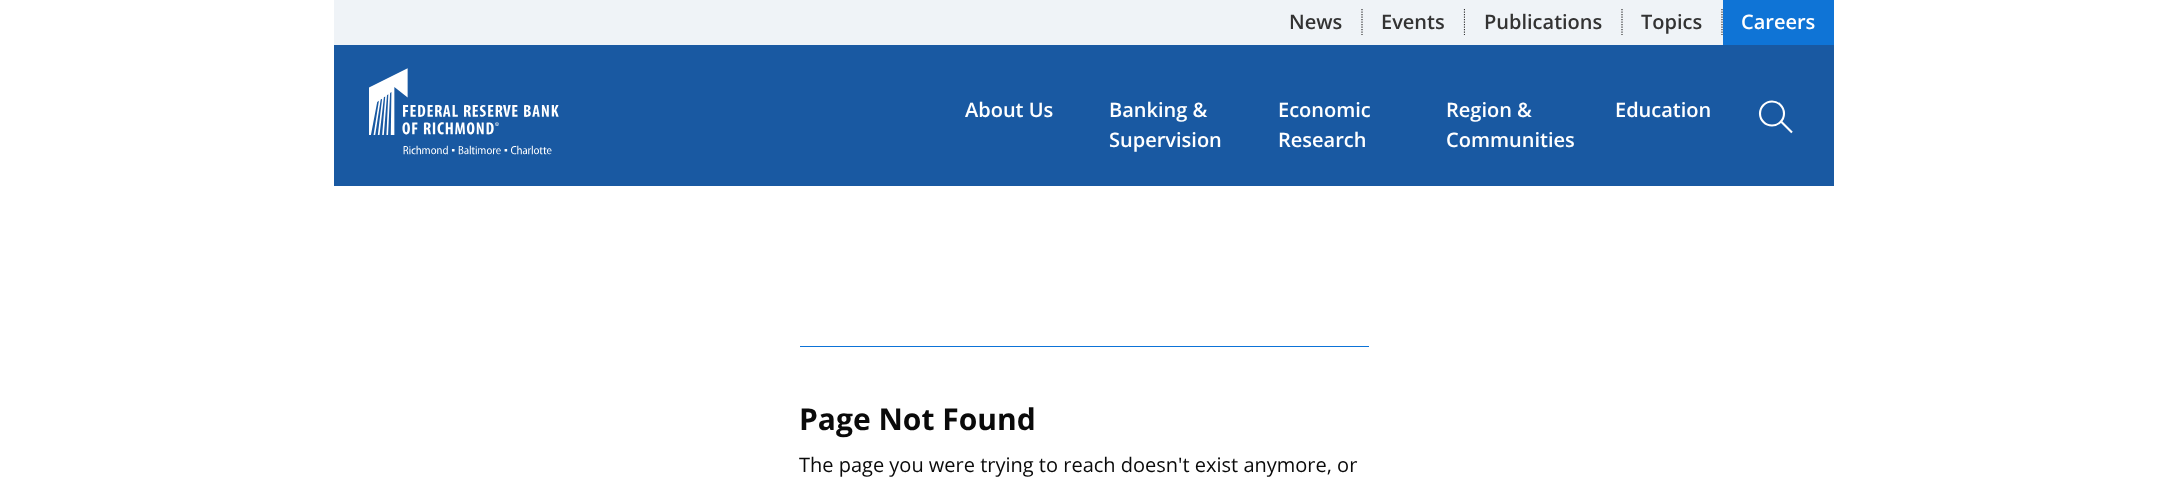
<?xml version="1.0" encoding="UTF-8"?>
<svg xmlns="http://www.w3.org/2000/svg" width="2167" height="478">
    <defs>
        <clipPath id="clip1"><rect x="1363" y="0" width="102" height="45"/></clipPath>
    </defs>
    <rect width="100%" height="100%" fill="#FFFFFF"/>
    <rect x="334" y="45" width="1500" height="141" fill="#1959A2"/>
    <rect x="334" y="0" width="1389" height="45" fill="#EFF3F7"/>
    <path d="M 1362 9 V 35" fill="none" stroke="#333333" stroke-width="1.2" stroke-dasharray="1.25 1.25"/>
    <text x="1289" y="29" font-family="Open Sans" font-size="20" font-weight="600" fill="#333333">News</text>
    <g clip-path="url(#clip1)">
        <path d="M 1464.5 9 V 35" fill="none" stroke="#333333" stroke-width="1.2" stroke-dasharray="1.25 1.25"/>
    </g>
    <text x="1381" y="29" font-family="Open Sans" font-size="20" font-weight="600" fill="#333333">Events</text>
    <path d="M 1622 9 V 35" fill="none" stroke="#333333" stroke-width="1.2" stroke-dasharray="1.25 1.25"/>
    <text x="1484" y="29" font-family="Open Sans" font-size="20" font-weight="600" fill="#333333">Publications</text>
    <path d="M 1722 9 V 35" fill="none" stroke="#333333" stroke-width="1.2" stroke-dasharray="1.25 1.25"/>
    <text x="1641" y="29" font-family="Open Sans" font-size="20" font-weight="600" fill="#333333">Topics</text>
    <rect x="1723" y="0" width="111" height="45" fill="#0F74D6"/>
    <text x="1741" y="29" font-family="Open Sans" font-size="20" font-weight="600" fill="#FFFFFF">Careers</text>
    <image x="369" y="68" width="190" height="87" href="img_01.png"/>
    <text x="965" y="117" font-family="Open Sans" font-size="20" font-weight="600" fill="#FFFFFF">About Us</text>
    <text font-family="Open Sans" font-size="20" font-weight="600" fill="#FFFFFF">
        <tspan x="1109" y="117">Banking &amp;</tspan>
        <tspan x="1109" y="147">Supervision</tspan>
    </text>
    <text font-family="Open Sans" font-size="20" font-weight="600" fill="#FFFFFF">
        <tspan x="1278" y="117">Economic</tspan>
        <tspan x="1278" y="147">Research</tspan>
    </text>
    <text font-family="Open Sans" font-size="20" font-weight="600" fill="#FFFFFF">
        <tspan x="1446" y="117">Region &amp;</tspan>
        <tspan x="1446" y="147">Communities</tspan>
    </text>
    <text x="1615" y="117" font-family="Open Sans" font-size="20" font-weight="600" fill="#FFFFFF">Education</text>
    <circle cx="1772" cy="113.5" r="12" fill="none" stroke="#FFFFFF" stroke-width="2.1"/>
    <path d="M 1792 132.5 L 1781 121.5" fill="none" stroke="#FFFFFF" stroke-width="2.1"/>
    <rect x="800" y="346" width="569" height="1" fill="#0D73D7"/>
    <text x="799" y="430" font-family="Open Sans" font-size="30" font-weight="700" fill="#0A0A0A">Page Not Found</text>
    <text x="799" y="472" font-family="Open Sans" font-size="20" fill="#0A0A0A">The page you were trying to reach doesn't exist anymore, or</text>
</svg>
